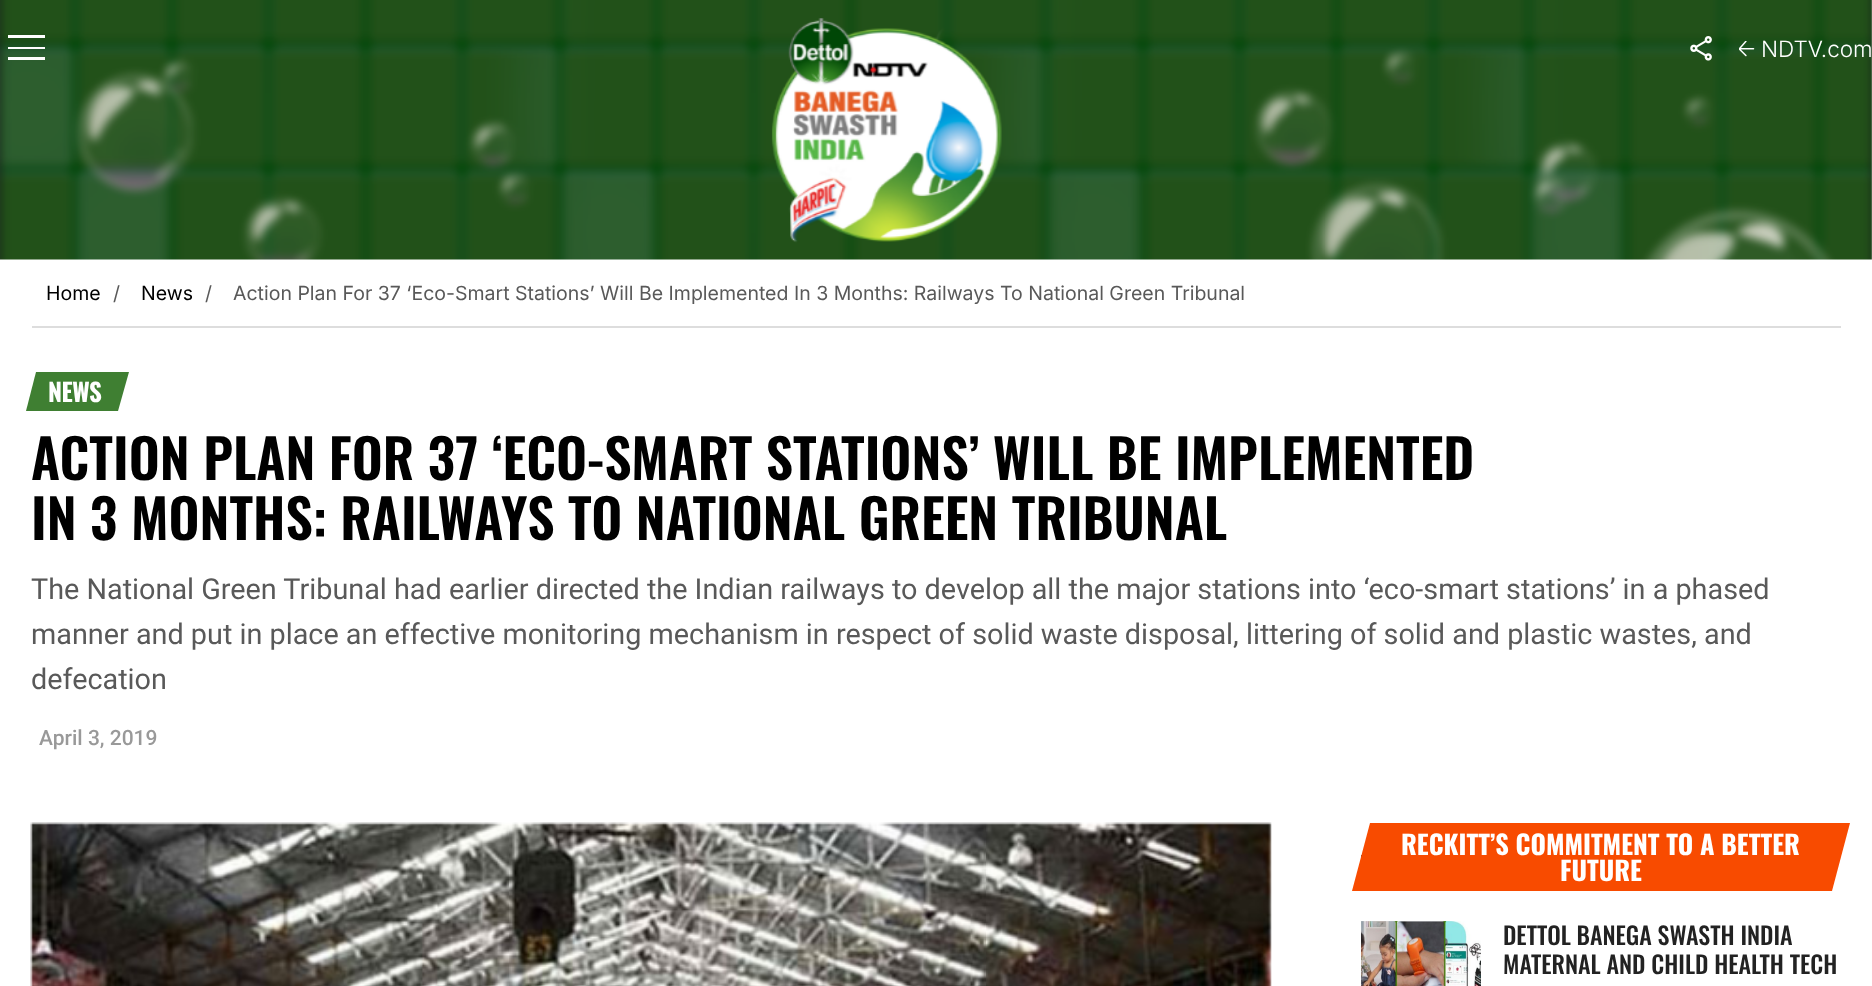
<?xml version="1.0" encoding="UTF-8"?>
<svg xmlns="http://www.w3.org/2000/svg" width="1872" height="986">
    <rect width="100%" height="100%" fill="#FFFFFF"/>
    <image x="0" y="0" width="1872" height="260" href="img_01.png"/>
    <rect x="8" y="35" width="37" height="3" fill="#FFFFFF"/>
    <rect x="8" y="47" width="37" height="2" fill="#FFFFFF"/>
    <rect x="8" y="57" width="37" height="3" fill="#FFFFFF"/>
    <image x="1690" y="36" width="22" height="25" href="img_02.png"/>
    <image x="1739" y="41" width="16" height="16" href="img_03.png"/>
    <text x="1761" y="57" font-family="Inter" font-size="22.5" font-weight="300" fill="#FFFFFF">NDTV.com</text>
    <rect x="32" y="326" width="1809" height="2" fill="#DDDDDD"/>
    <text x="46" y="300" font-family="Inter" font-size="19.5" fill="#000000">Home</text>
    <text x="113" y="300" font-family="Inter" font-size="19.5" fill="#595959">/</text>
    <text x="141" y="300" font-family="Inter" font-size="19.5" fill="#000000">News</text>
    <text x="205" y="300" font-family="Inter" font-size="19.5" fill="#595959">/</text>
    <text x="233" y="300" font-family="Inter" font-size="19.5" fill="#595959">Action Plan For 37 ‘Eco-Smart Stations’ Will Be Implemented In 3 Months: Railways To National Green Tribunal</text>
    <path d="M 36 372 H 129 L 118 411 H 26 Z" fill="#3F7F32"/>
    <text x="48" y="402" font-family="Oswald" font-size="25" font-weight="700" letter-spacing="-0.5" fill="#FFFFFF">NEWS</text>
    <text font-family="Oswald" font-size="54" font-weight="600" fill="#000000">
        <tspan x="31" y="480">ACTION PLAN FOR 37 ‘ECO-SMART STATIONS’ WILL BE IMPLEMENTED</tspan>
        <tspan x="31" y="540">IN 3 MONTHS: RAILWAYS TO NATIONAL GREEN TRIBUNAL</tspan>
    </text>
    <text font-family="Roboto" font-size="28.8" fill="#595959">
        <tspan x="31" y="599">The National Green Tribunal had earlier directed the Indian railways to develop all the major stations into ‘eco-smart stations’ in a phased</tspan>
        <tspan x="31" y="644">manner and put in place an effective monitoring mechanism in respect of solid waste disposal, littering of solid and plastic wastes, and</tspan>
        <tspan x="31" y="689">defecation</tspan>
    </text>
    <text x="39" y="745" font-family="Roboto" font-size="21" font-weight="500" fill="#999999">April 3, 2019</text>
    <image x="30" y="822" width="1242" height="164" href="img_04.png"/>
    <rect x="1361" y="855" width="1" height="2" fill="#555555"/>
    <path d="M 1370 823 H 1850 L 1832 891 H 1352 Z" fill="#F84B00"/>
    <text x="1401" y="855" font-family="Oswald" font-size="26.4" font-weight="700" fill="#FFFFFF">RECKITT’S COMMITMENT TO A BETTER</text>
    <text x="1560" y="881" font-family="Oswald" font-size="26.4" font-weight="700" fill="#FFFFFF">FUTURE</text>
    <image x="1361" y="921" width="120" height="65" href="img_05.png"/>
    <text font-family="Oswald" font-size="24" font-weight="500" fill="#222222">
        <tspan x="1503" y="945">DETTOL BANEGA SWASTH INDIA</tspan>
        <tspan x="1503" y="974">MATERNAL AND CHILD HEALTH TECH</tspan>
    </text>
</svg>
